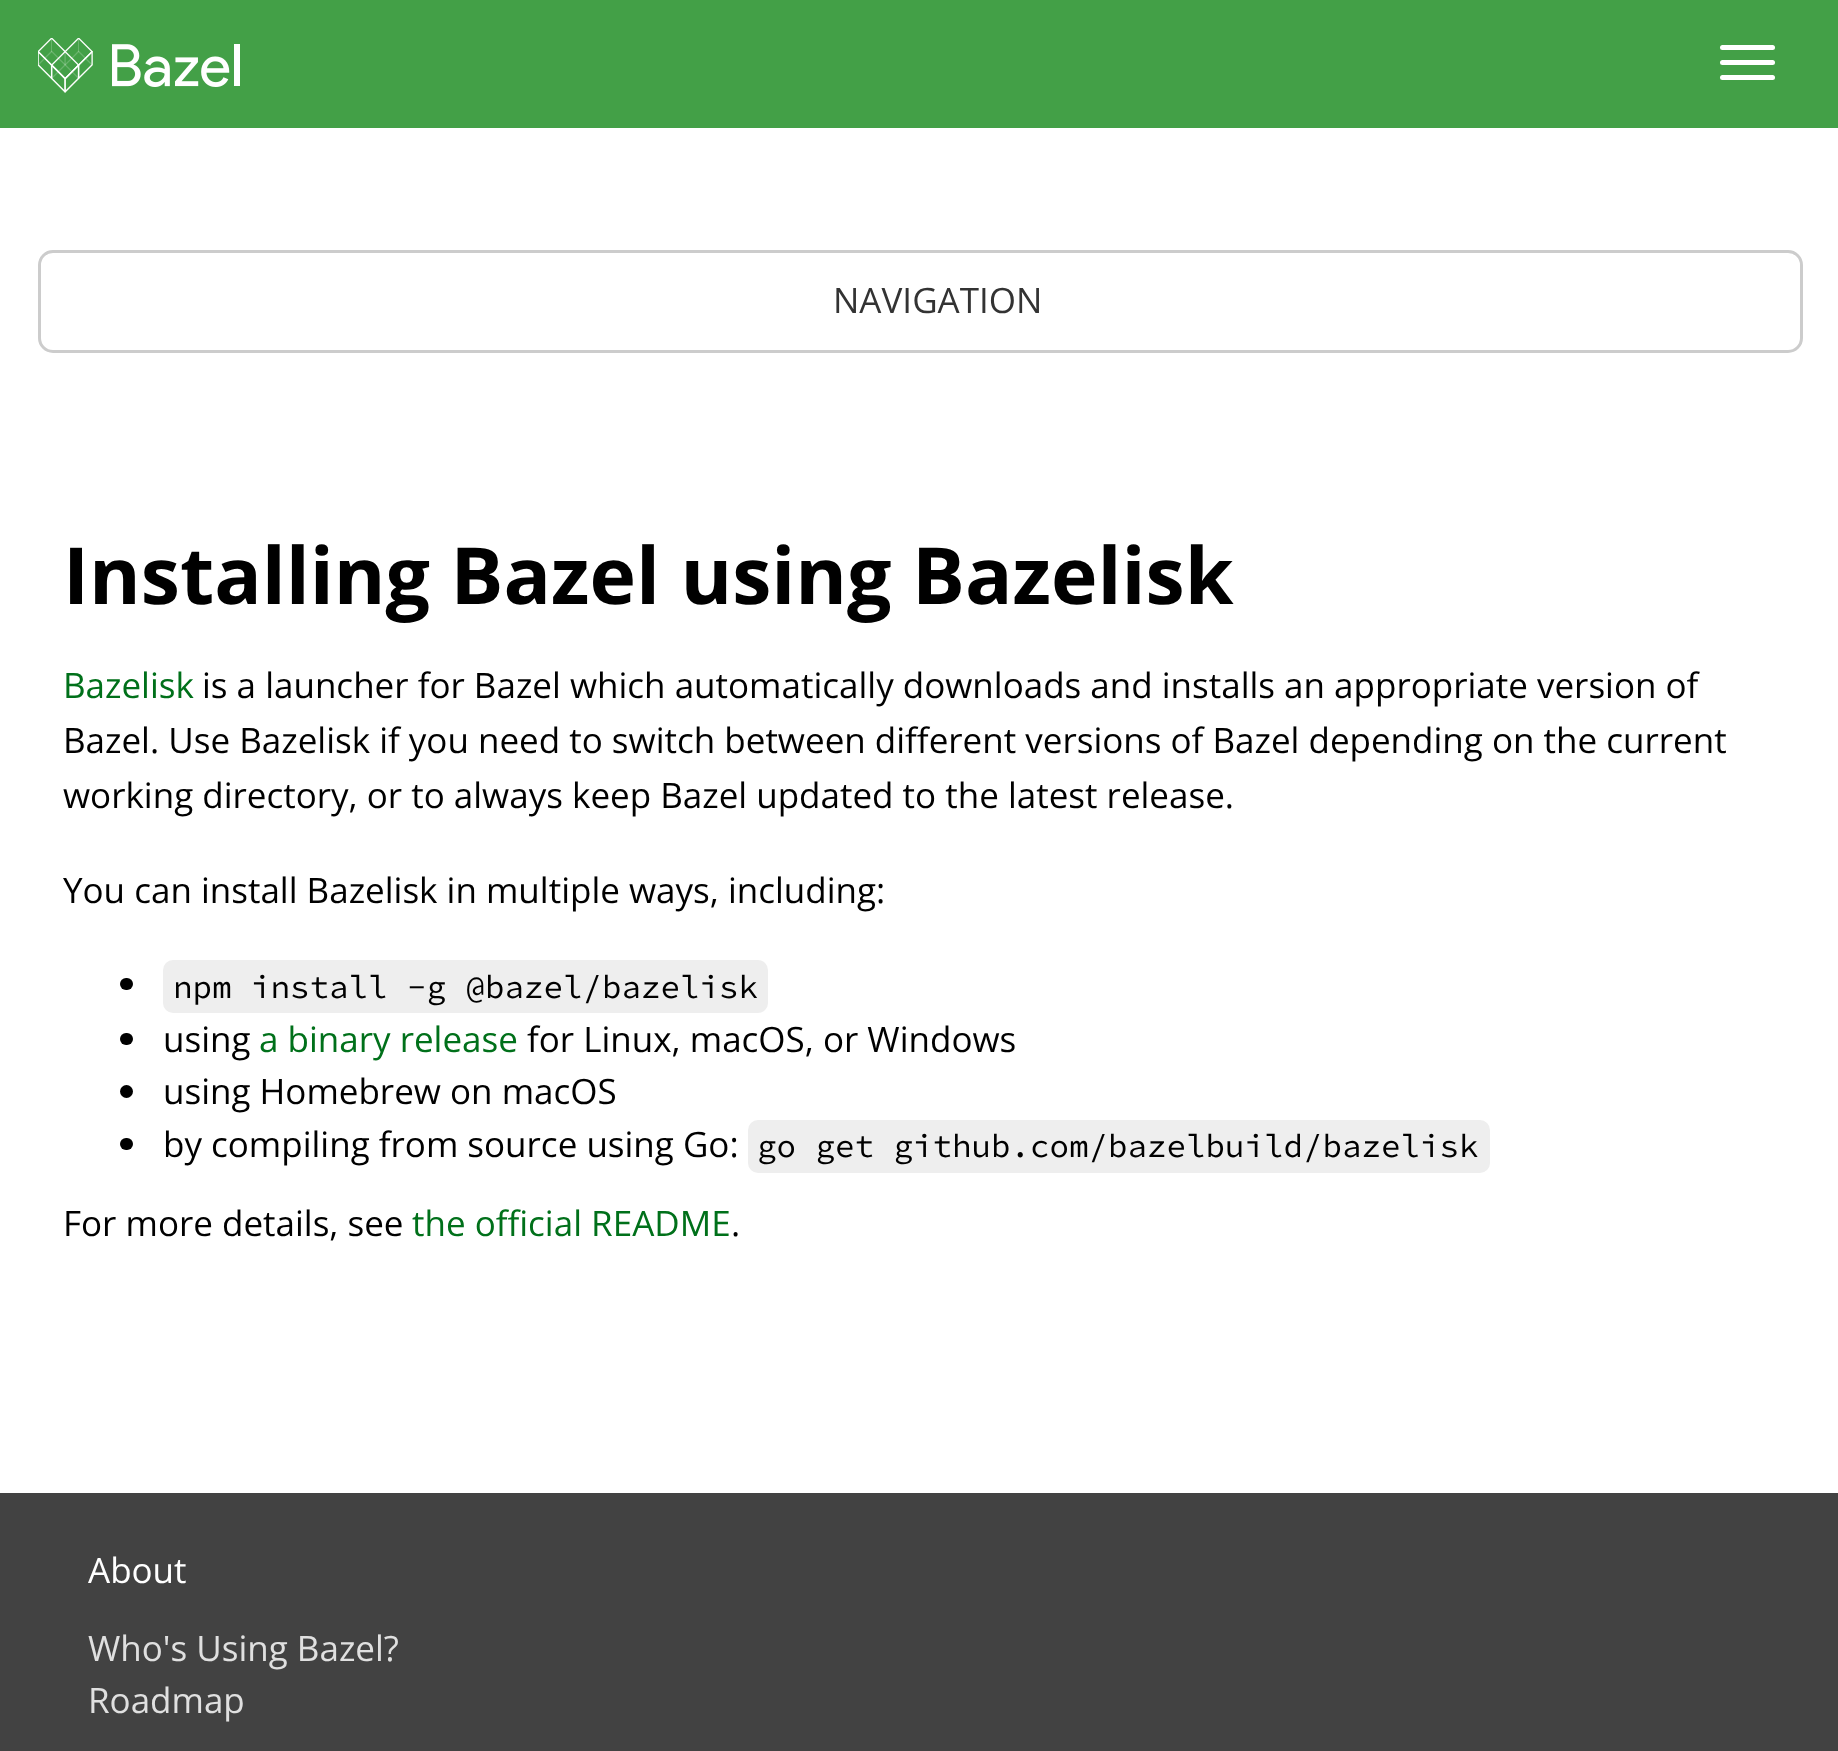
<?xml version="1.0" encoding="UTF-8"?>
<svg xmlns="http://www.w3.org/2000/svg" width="1838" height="1751">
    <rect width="100%" height="100%" fill="#FFFFFF"/>
    <rect x="0" y="0" width="1838" height="128" fill="#43A047"/>
    <image x="38" y="38" width="202" height="55" href="img_01.png"/>
    <rect x="1720" y="45" width="55" height="5" rx="2.5" fill="#FFFFFF"/>
    <rect x="1720" y="60" width="55" height="5" rx="2.5" fill="#FFFFFF"/>
    <rect x="1720" y="75" width="55" height="5" rx="2.5" fill="#FFFFFF"/>
    <rect x="39.5" y="251.5" width="1762" height="100" rx="13.5" fill="none" stroke="#CCCCCC" stroke-width="3"/>
    <text x="833" y="313" font-family="Open Sans" font-size="35" fill="#333333">NAVIGATION</text>
    <text x="63" y="604" font-family="Open Sans" font-size="78.75" font-weight="700" fill="#000000">Installing Bazel using Bazelisk</text>
    <text x="63" y="698" font-family="Open Sans" font-size="35" fill="#00701A">Bazelisk</text>
    <text x="202" y="698" font-family="Open Sans" font-size="35" fill="#000000">is a launcher for Bazel which automatically downloads and installs an appropriate version of</text>
    <text font-family="Open Sans" font-size="35" fill="#000000">
        <tspan x="63" y="753">Bazel. Use Bazelisk if you need to switch between different versions of Bazel depending on the current</tspan>
        <tspan x="63" y="808">working directory, or to always keep Bazel updated to the latest release.</tspan>
    </text>
    <text x="63" y="903" font-family="Open Sans" font-size="35" fill="#000000">You can install Bazelisk in multiple ways, including:</text>
    <rect x="120" y="978" width="13" height="12" rx="6" fill="#000000"/>
    <rect x="163" y="960" width="605" height="53" rx="10" fill="#EEEEEE"/>
    <text x="173" y="998" font-family="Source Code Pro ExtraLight" font-size="32.5" fill="#000000">npm install -g @bazel/bazelisk</text>
    <rect x="120" y="1033" width="13" height="12" rx="6" fill="#000000"/>
    <text x="163" y="1052" font-family="Open Sans" font-size="35" fill="#000000">using</text>
    <text x="259" y="1052" font-family="Open Sans" font-size="35" fill="#00701A">a binary release</text>
    <text x="527" y="1052" font-family="Open Sans" font-size="35" fill="#000000">for Linux, macOS, or Windows</text>
    <circle cx="126.5" cy="1091.5" r="6.5" fill="#000000"/>
    <text x="163" y="1104" font-family="Open Sans" font-size="35" fill="#000000">using Homebrew on macOS</text>
    <rect x="120" y="1138" width="13" height="12" rx="6" fill="#000000"/>
    <text x="163" y="1157" font-family="Open Sans" font-size="35" fill="#000000">by compiling from source using Go:</text>
    <rect x="748" y="1120" width="742" height="53" rx="10" fill="#EEEEEE"/>
    <text x="757" y="1157" font-family="Source Code Pro ExtraLight" font-size="32.5" fill="#000000">go get github.com/bazelbuild/bazelisk</text>
    <text x="63" y="1236" font-family="Open Sans" font-size="35" fill="#000000">For more details, see</text>
    <text x="412" y="1236" font-family="Open Sans" font-size="35" fill="#00701A">the official README</text>
    <text x="731" y="1236" font-family="Open Sans" font-size="35" fill="#000000">.</text>
    <rect x="0" y="1493" width="1838" height="258" fill="#424242"/>
    <text x="88" y="1583" font-family="Open Sans" font-size="35" fill="#FFFFFF">About</text>
    <text font-family="Open Sans" font-size="35" fill="#E0E0E0">
        <tspan x="88" y="1661">Who's Using Bazel?</tspan>
        <tspan x="88" y="1713">Roadmap</tspan>
    </text>
</svg>
